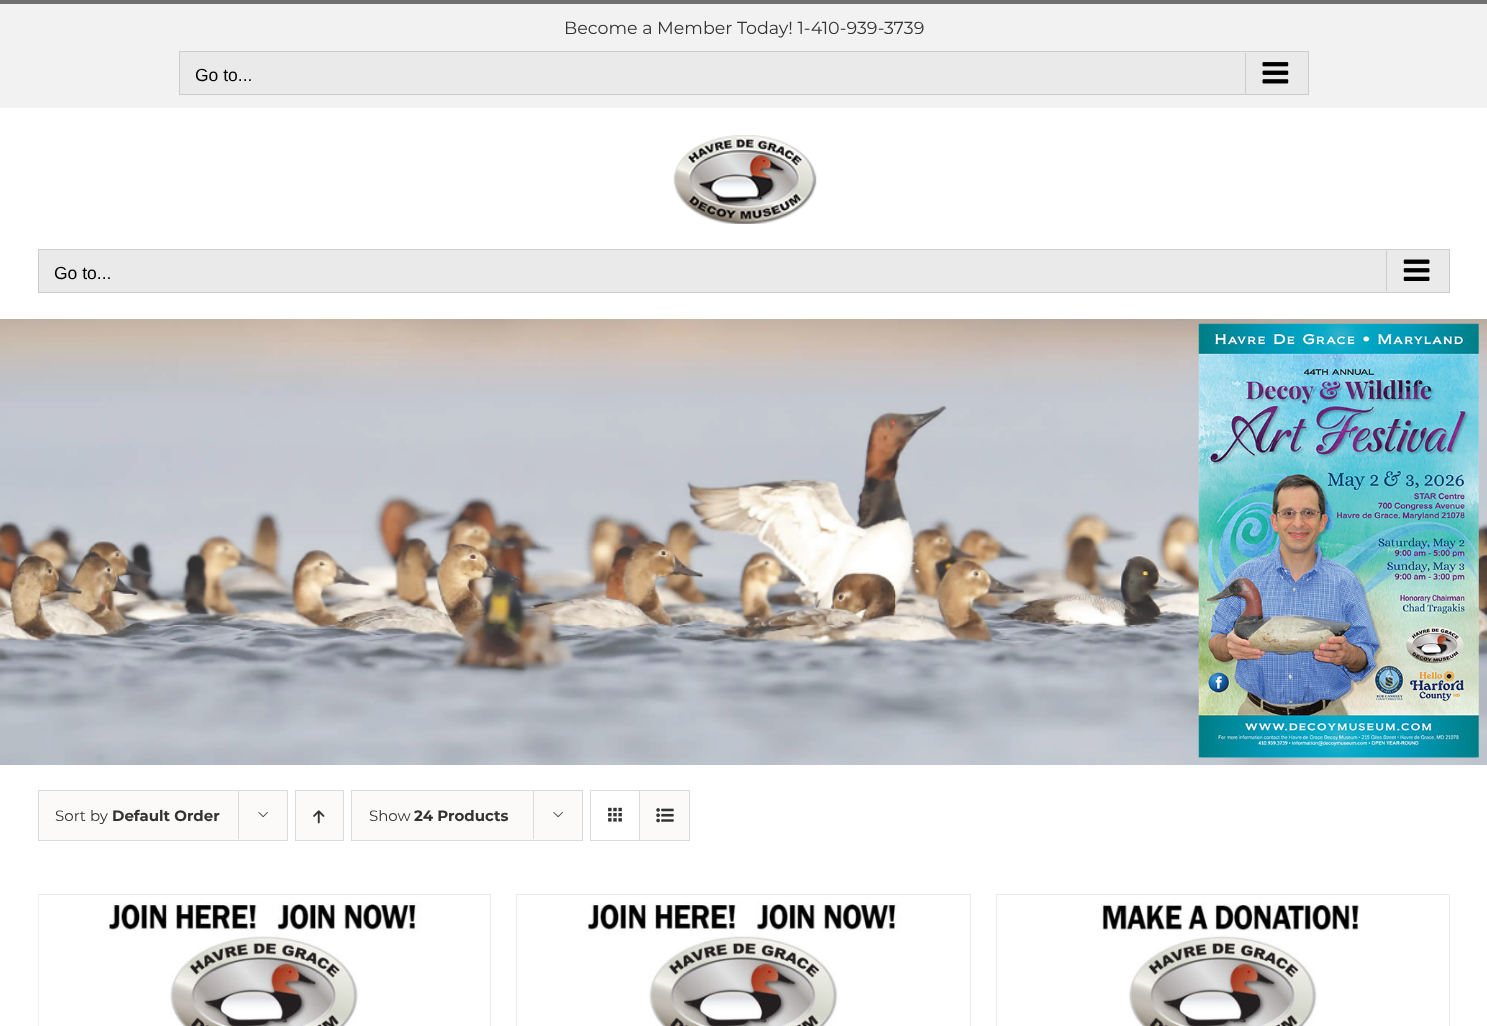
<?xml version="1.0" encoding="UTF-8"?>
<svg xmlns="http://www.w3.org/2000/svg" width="1487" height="1026">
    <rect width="100%" height="100%" fill="#FFFFFF"/>
    <rect x="0" y="4" width="1487" height="104" fill="#F2F2F2"/>
    <rect x="0" y="0" width="1487" height="4" fill="#707070"/>
    <text x="564" y="34" font-family="Montserrat" font-size="17.5" fill="#333333">Become a Member Today! 1-410-939-3739</text>
    <rect x="179.5" y="51.5" width="1129" height="43" fill="#EAEAEA" stroke="#CCCCCC"/>
    <text x="195" y="81" font-family="Liberation Sans" font-size="17.5" fill="#000000">Go to...</text>
    <rect x="1245" y="53" width="1" height="41" fill="#CCCCCC"/>
    <image x="1262" y="62" width="27" height="22" href="img_01.png"/>
    <image x="673" y="135" width="144" height="89" href="img_02.png"/>
    <rect x="38.5" y="249.5" width="1411" height="43" fill="#EAEAEA" stroke="#CCCCCC"/>
    <text x="54" y="279" font-family="Liberation Sans" font-size="17.5" fill="#000000">Go to...</text>
    <rect x="1386" y="250" width="1" height="41" fill="#CCCCCC"/>
    <image x="1403" y="259" width="27" height="22" href="img_03.png"/>
    <image x="0" y="319" width="1487" height="446" href="img_04.png"/>
    <image x="1198" y="323" width="281" height="435" href="img_05.png"/>
    <rect x="38.5" y="790.5" width="249" height="50" fill="#FBFAF9" stroke="#DBDBDB"/>
    <text x="55" y="821" font-family="Montserrat" font-size="15" fill="#333333">Sort by</text>
    <text x="112" y="821" font-family="Montserrat" font-size="15" font-weight="700" fill="#333333">Default Order</text>
    <rect x="238" y="790" width="1" height="49" fill="#DBDBDB"/>
    <image x="258" y="812" width="10" height="6" href="img_06.png"/>
    <rect x="295.5" y="790.5" width="48" height="50" fill="#FBFAF9" stroke="#DBDBDB"/>
    <image x="313" y="810" width="12" height="14" href="img_07.png"/>
    <rect x="351.5" y="790.5" width="231" height="50" fill="#FBFAF9" stroke="#DBDBDB"/>
    <text x="369" y="821" font-family="Montserrat" font-size="15" fill="#333333">Show</text>
    <text x="414" y="821" font-family="Montserrat" font-size="15" font-weight="700" fill="#333333">24 Products</text>
    <rect x="533" y="790" width="1" height="49" fill="#DBDBDB"/>
    <image x="553" y="812" width="10" height="6" href="img_06.png"/>
    <rect x="590.5" y="790.5" width="99" height="50" fill="none" stroke="#DBDBDB"/>
    <rect x="639" y="791" width="1" height="49" fill="#DBDBDB"/>
    <image x="608" y="807" width="14" height="15" href="img_08.png"/>
    <rect x="640" y="791" width="49" height="49" fill="#FBFAF9"/>
    <image x="656" y="808" width="18" height="15" href="img_09.png"/>
    <rect x="38" y="894" width="453" height="1" fill="#EBEAEA"/>
    <rect x="490" y="894" width="1" height="132" fill="#EBEAEA"/>
    <rect x="38" y="894" width="1" height="132" fill="#EBEAEA"/>
    <image x="38" y="895" width="383" height="131" href="img_10.png"/>
    <rect x="516" y="894" width="455" height="1" fill="#EBEAEA"/>
    <rect x="970" y="894" width="1" height="132" fill="#EBEAEA"/>
    <rect x="516" y="894" width="1" height="132" fill="#EBEAEA"/>
    <image x="585" y="902" width="316" height="124" href="img_11.png"/>
    <rect x="996" y="894" width="454" height="1" fill="#EBEAEA"/>
    <rect x="1449" y="894" width="1" height="132" fill="#EBEAEA"/>
    <rect x="996" y="894" width="1" height="132" fill="#EBEAEA"/>
    <image x="1101" y="902" width="258" height="124" href="img_12.png"/>
</svg>
